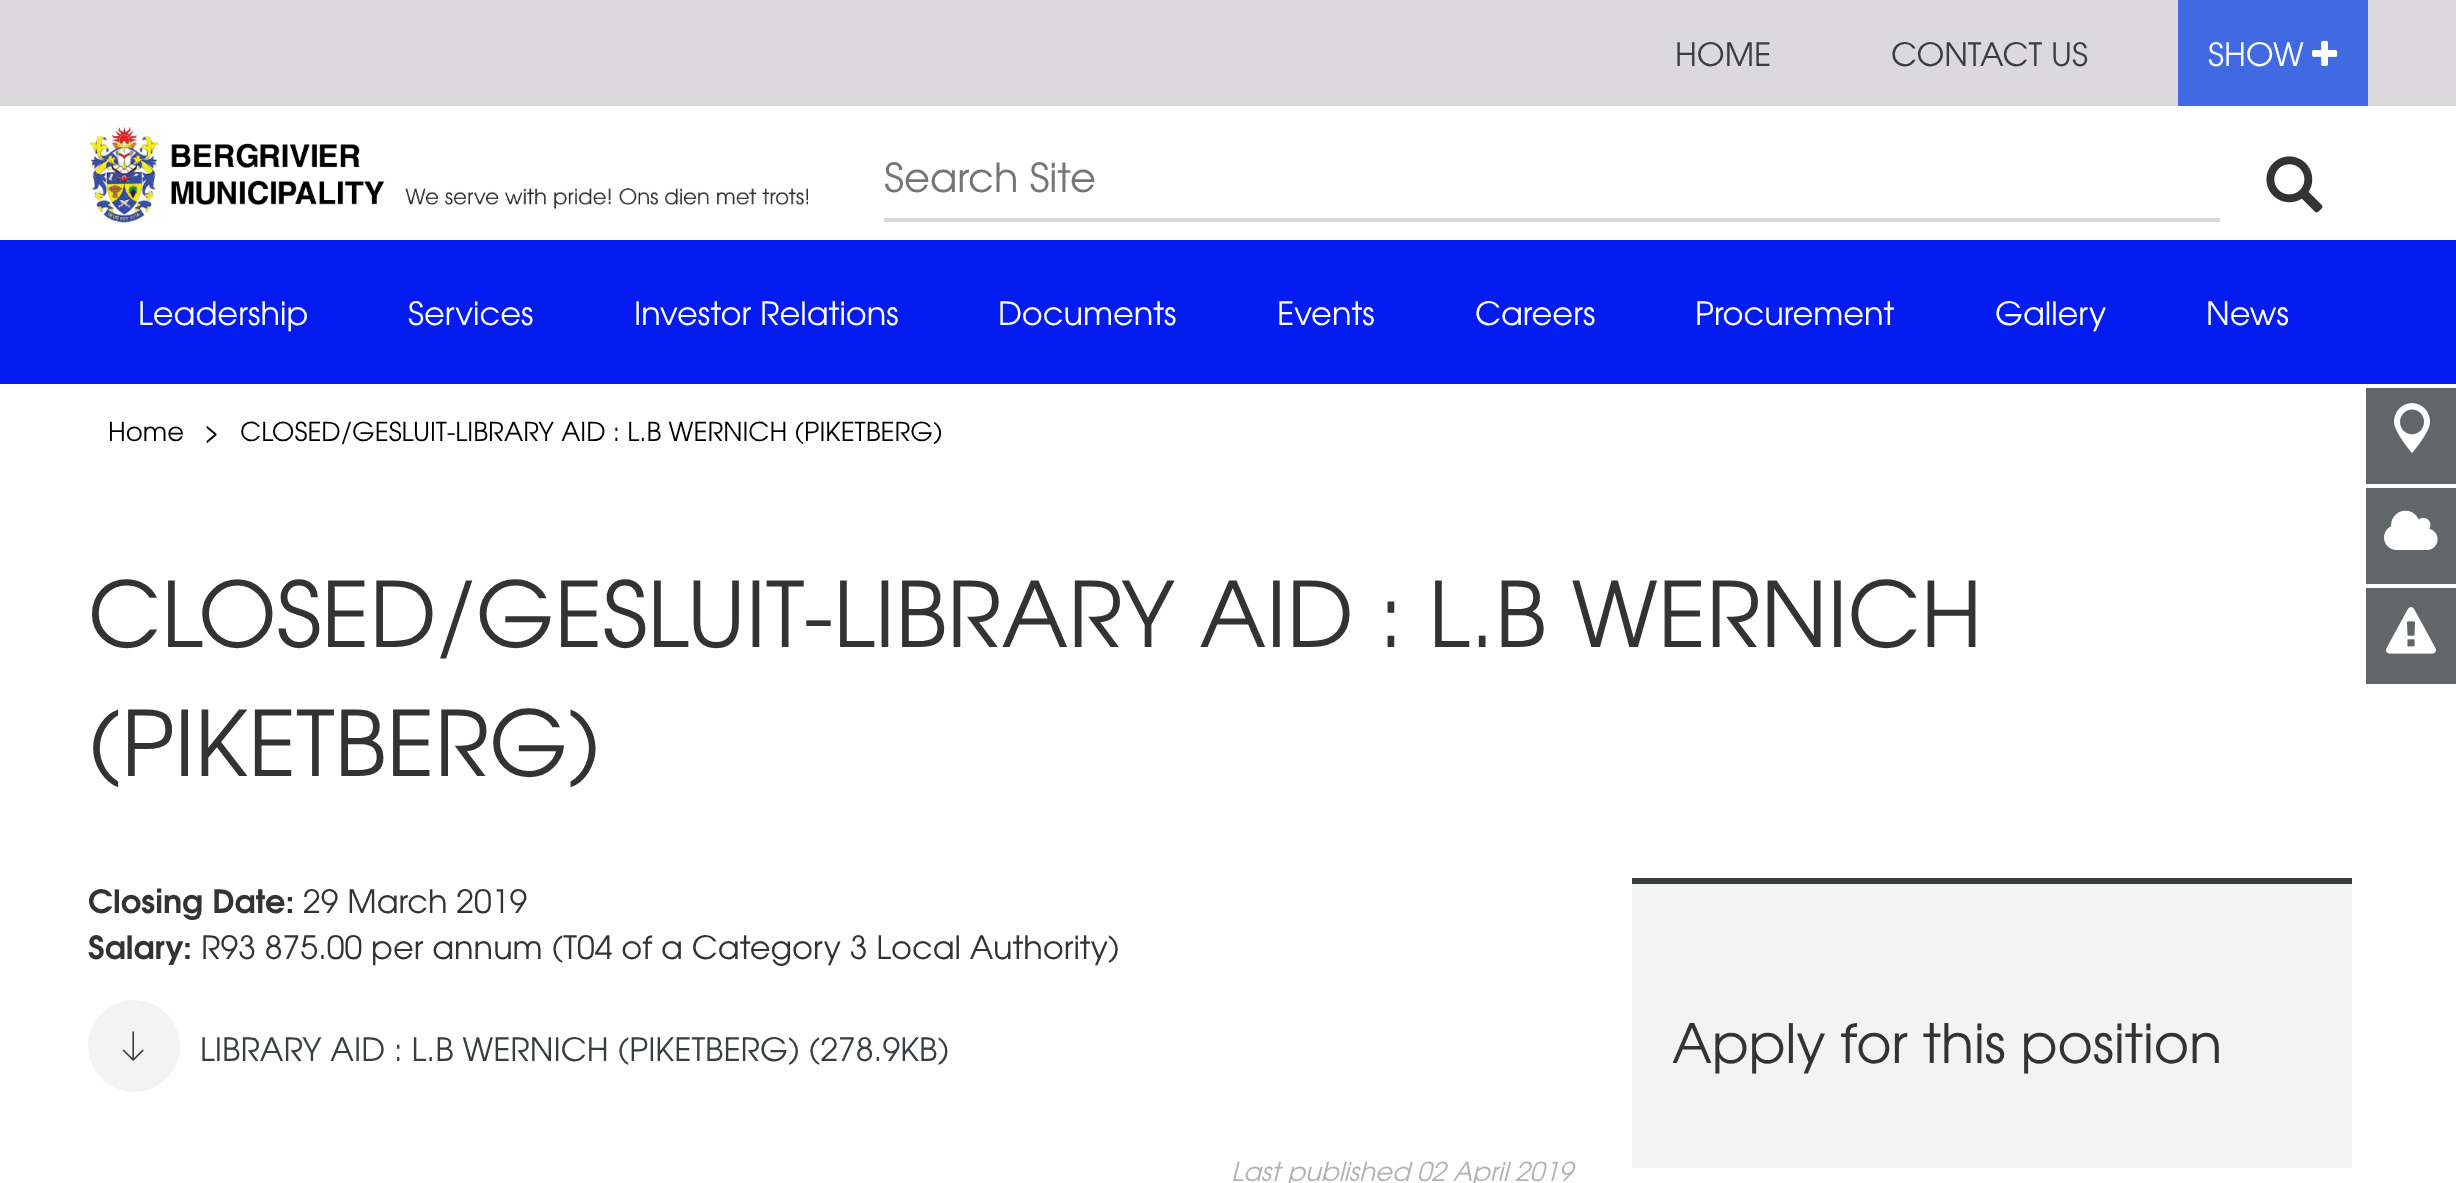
<?xml version="1.0" encoding="UTF-8"?>
<svg xmlns="http://www.w3.org/2000/svg" width="2456" height="1183">
    <rect width="100%" height="100%" fill="#FFFFFF"/>
    <rect x="0" y="0" width="2456" height="106" fill="#DBD9DB"/>
    <text x="1675" y="66" font-family="TeX Gyre Adventor" font-size="32" fill="#383D3F">HOME</text>
    <text x="1891" y="66" font-family="TeX Gyre Adventor" font-size="32" fill="#383D3F">CONTACT US</text>
    <rect x="2178" y="0" width="190" height="106" fill="#4169E1"/>
    <text x="2208" y="66" font-family="TeX Gyre Adventor" font-size="32" fill="#FFFFFF">SHOW</text>
    <image x="2312" y="40" width="26" height="26" href="img_01.png"/>
    <image x="89" y="127" width="719" height="96" href="img_02.png"/>
    <rect x="884" y="218" width="1336" height="4" fill="#DBD9DB"/>
    <text x="884" y="192" font-family="TeX Gyre Adventor" font-size="40" fill="#757575">Search Site</text>
    <image x="2266" y="156" width="57" height="57" href="img_03.png"/>
    <rect x="0" y="240" width="2456" height="144" fill="#041CF0"/>
    <text x="138" y="325" font-family="TeX Gyre Adventor" font-size="32" fill="#FFFFFF">Leadership</text>
    <text x="408" y="325" font-family="TeX Gyre Adventor" font-size="32" fill="#FFFFFF">Services</text>
    <text x="634" y="325" font-family="TeX Gyre Adventor" font-size="32" fill="#FFFFFF">Investor Relations</text>
    <text x="998" y="325" font-family="TeX Gyre Adventor" font-size="32" fill="#FFFFFF">Documents</text>
    <text x="1277" y="325" font-family="TeX Gyre Adventor" font-size="32" fill="#FFFFFF">Events</text>
    <text x="1475" y="325" font-family="TeX Gyre Adventor" font-size="32" fill="#FFFFFF">Careers</text>
    <text x="1695" y="325" font-family="TeX Gyre Adventor" font-size="32" fill="#FFFFFF">Procurement</text>
    <text x="1995" y="325" font-family="TeX Gyre Adventor" font-size="32" fill="#FFFFFF">Gallery</text>
    <text x="2206" y="325" font-family="TeX Gyre Adventor" font-size="32" fill="#FFFFFF">News</text>
    <text x="108" y="441" font-family="TeX Gyre Adventor" font-size="26" fill="#000000">Home</text>
    <text x="204" y="441" font-family="TeX Gyre Adventor" font-size="26" fill="#000000">&gt;</text>
    <text x="240" y="441" font-family="TeX Gyre Adventor" font-size="26" fill="#000000">CLOSED/GESLUIT-LIBRARY AID : L.B WERNICH (PIKETBERG)</text>
    <text font-family="TeX Gyre Adventor" font-size="90" fill="#333333">
        <tspan x="88" y="647">CLOSED/GESLUIT-LIBRARY AID : L.B WERNICH</tspan>
        <tspan x="88" y="776">(PIKETBERG)</tspan>
    </text>
    <text x="88" y="913" font-family="TeX Gyre Adventor" font-size="32" font-weight="700" fill="#333333">Closing Date:</text>
    <text x="303" y="913" font-family="TeX Gyre Adventor" font-size="32" fill="#333333">29 March 2019</text>
    <text x="88" y="959" font-family="TeX Gyre Adventor" font-size="32" font-weight="700" fill="#333333">Salary:</text>
    <text x="201" y="959" font-family="TeX Gyre Adventor" font-size="32" fill="#333333">R93 875.00 per annum (T04 of a Category 3 Local Authority)</text>
    <circle cx="134" cy="1046" r="46" fill="#F3F3F3"/>
    <image x="122" y="1031" width="22" height="30" href="img_04.png"/>
    <text x="200" y="1061" font-family="TeX Gyre Adventor" font-size="32" fill="#383D3F">LIBRARY AID : L.B WERNICH (PIKETBERG) (278.9KB)</text>
    <text x="1231" y="1181" font-family="TeX Gyre Adventor" font-size="26" font-style="italic" fill="#B0B2B3">Last published 02 April 2019</text>
    <rect x="1632" y="884" width="720" height="284" fill="#F3F3F3"/>
    <rect x="1632" y="878" width="720" height="6" fill="#383D3F"/>
    <text x="1672" y="1063" font-family="TeX Gyre Adventor" font-size="54" fill="#333333">Apply for this position</text>
    <rect x="2366" y="388" width="90" height="96" fill="#626668"/>
    <image x="2394" y="403" width="36" height="50" href="img_05.png"/>
    <rect x="2366" y="488" width="90" height="96" fill="#626668"/>
    <image x="2384" y="510" width="54" height="40" href="img_06.png"/>
    <rect x="2366" y="588" width="90" height="96" fill="#626668"/>
    <image x="2386" y="607" width="50" height="47" href="img_07.png"/>
</svg>
